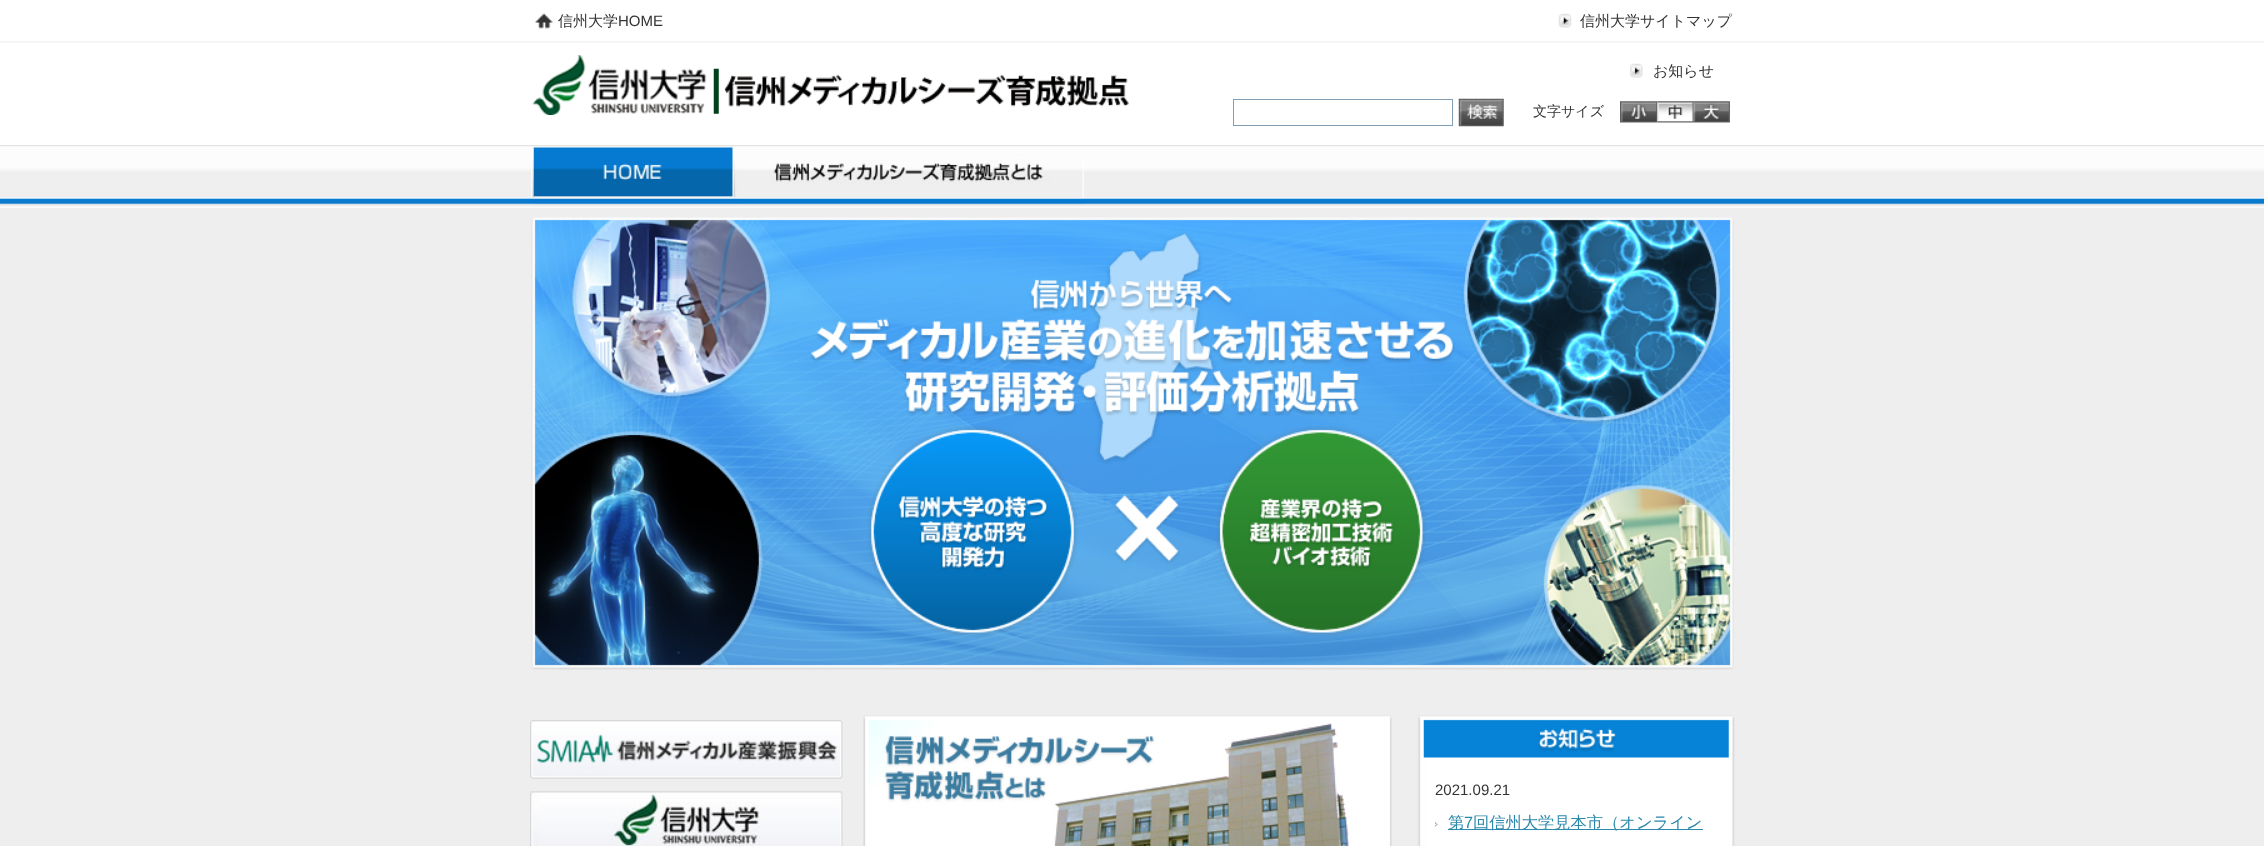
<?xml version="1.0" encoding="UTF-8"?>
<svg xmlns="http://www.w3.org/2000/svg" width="2264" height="846">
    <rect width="100%" height="100%" fill="#FFFFFF"/>
    <image x="0" y="41" width="2264" height="2" href="img_01.png"/>
    <image x="535" y="13" width="18" height="16" href="img_02.png"/>
    <text x="558" y="26" font-family="WenQuanYi Zen Hei" font-size="15" font-weight="500" fill="#333333">信州大学</text>
    <text x="618" y="26" font-family="Liberation Sans" font-size="15" fill="#333333">HOME</text>
    <image x="1558" y="13" width="14" height="15" href="img_03.png"/>
    <text x="1580" y="26" font-family="WenQuanYi Zen Hei" font-size="15" font-weight="500" fill="#333333">信州大学サイトマップ</text>
    <image x="532" y="55" width="597" height="60" href="img_04.png"/>
    <image x="1630" y="63" width="13" height="15" href="img_05.png"/>
    <text x="1653" y="76" font-family="WenQuanYi Zen Hei" font-size="15" font-weight="500" fill="#333333">お知らせ</text>
    <rect x="1233.5" y="99.5" width="219" height="26" fill="none" stroke="#809EB6"/>
    <image x="1458" y="98" width="46" height="29" href="img_06.png"/>
    <text x="1533" y="116" font-family="WenQuanYi Zen Hei" font-size="14" font-weight="500" fill="#333333">文字サイズ</text>
    <image x="1620" y="101" width="38" height="22" href="img_07.png"/>
    <image x="1657" y="101" width="37" height="22" href="img_08.png"/>
    <image x="1693" y="101" width="37" height="22" href="img_09.png"/>
    <image x="0" y="145" width="2264" height="63" href="img_10.png"/>
    <image x="531" y="145" width="203" height="59" href="img_11.png"/>
    <image x="733" y="159" width="351" height="45" href="img_12.png"/>
    <rect x="0" y="208" width="2264" height="638" fill="#EEEEEE"/>
    <image x="531" y="217" width="1203" height="453" href="img_13.png"/>
    <image x="530" y="720" width="313" height="59" href="img_14.png"/>
    <image x="530" y="791" width="313" height="55" href="img_15.png"/>
    <image x="863" y="715" width="529" height="131" href="img_16.png"/>
    <image x="1417" y="715" width="318" height="131" href="img_17.png"/>
    <image x="1418" y="715" width="317" height="43" href="img_18.png"/>
    <text x="1435" y="795" font-family="Liberation Sans" font-size="15" fill="#333333">2021.09.21</text>
    <image x="1435" y="822" width="3" height="5" href="img_19.png"/>
    <rect x="1448" y="829" width="255" height="1" fill="#2C89AB"/>
    <text x="1448" y="828" font-family="WenQuanYi Zen Hei" font-size="16.25" font-weight="500" fill="#2C89AB">第</text>
    <text x="1464" y="828" font-family="Liberation Sans" font-size="16.25" fill="#2C89AB">7</text>
    <text x="1473" y="828" font-family="WenQuanYi Zen Hei" font-size="16.25" font-weight="500" fill="#2C89AB">回信州大学見本市（オンライン</text>
</svg>
